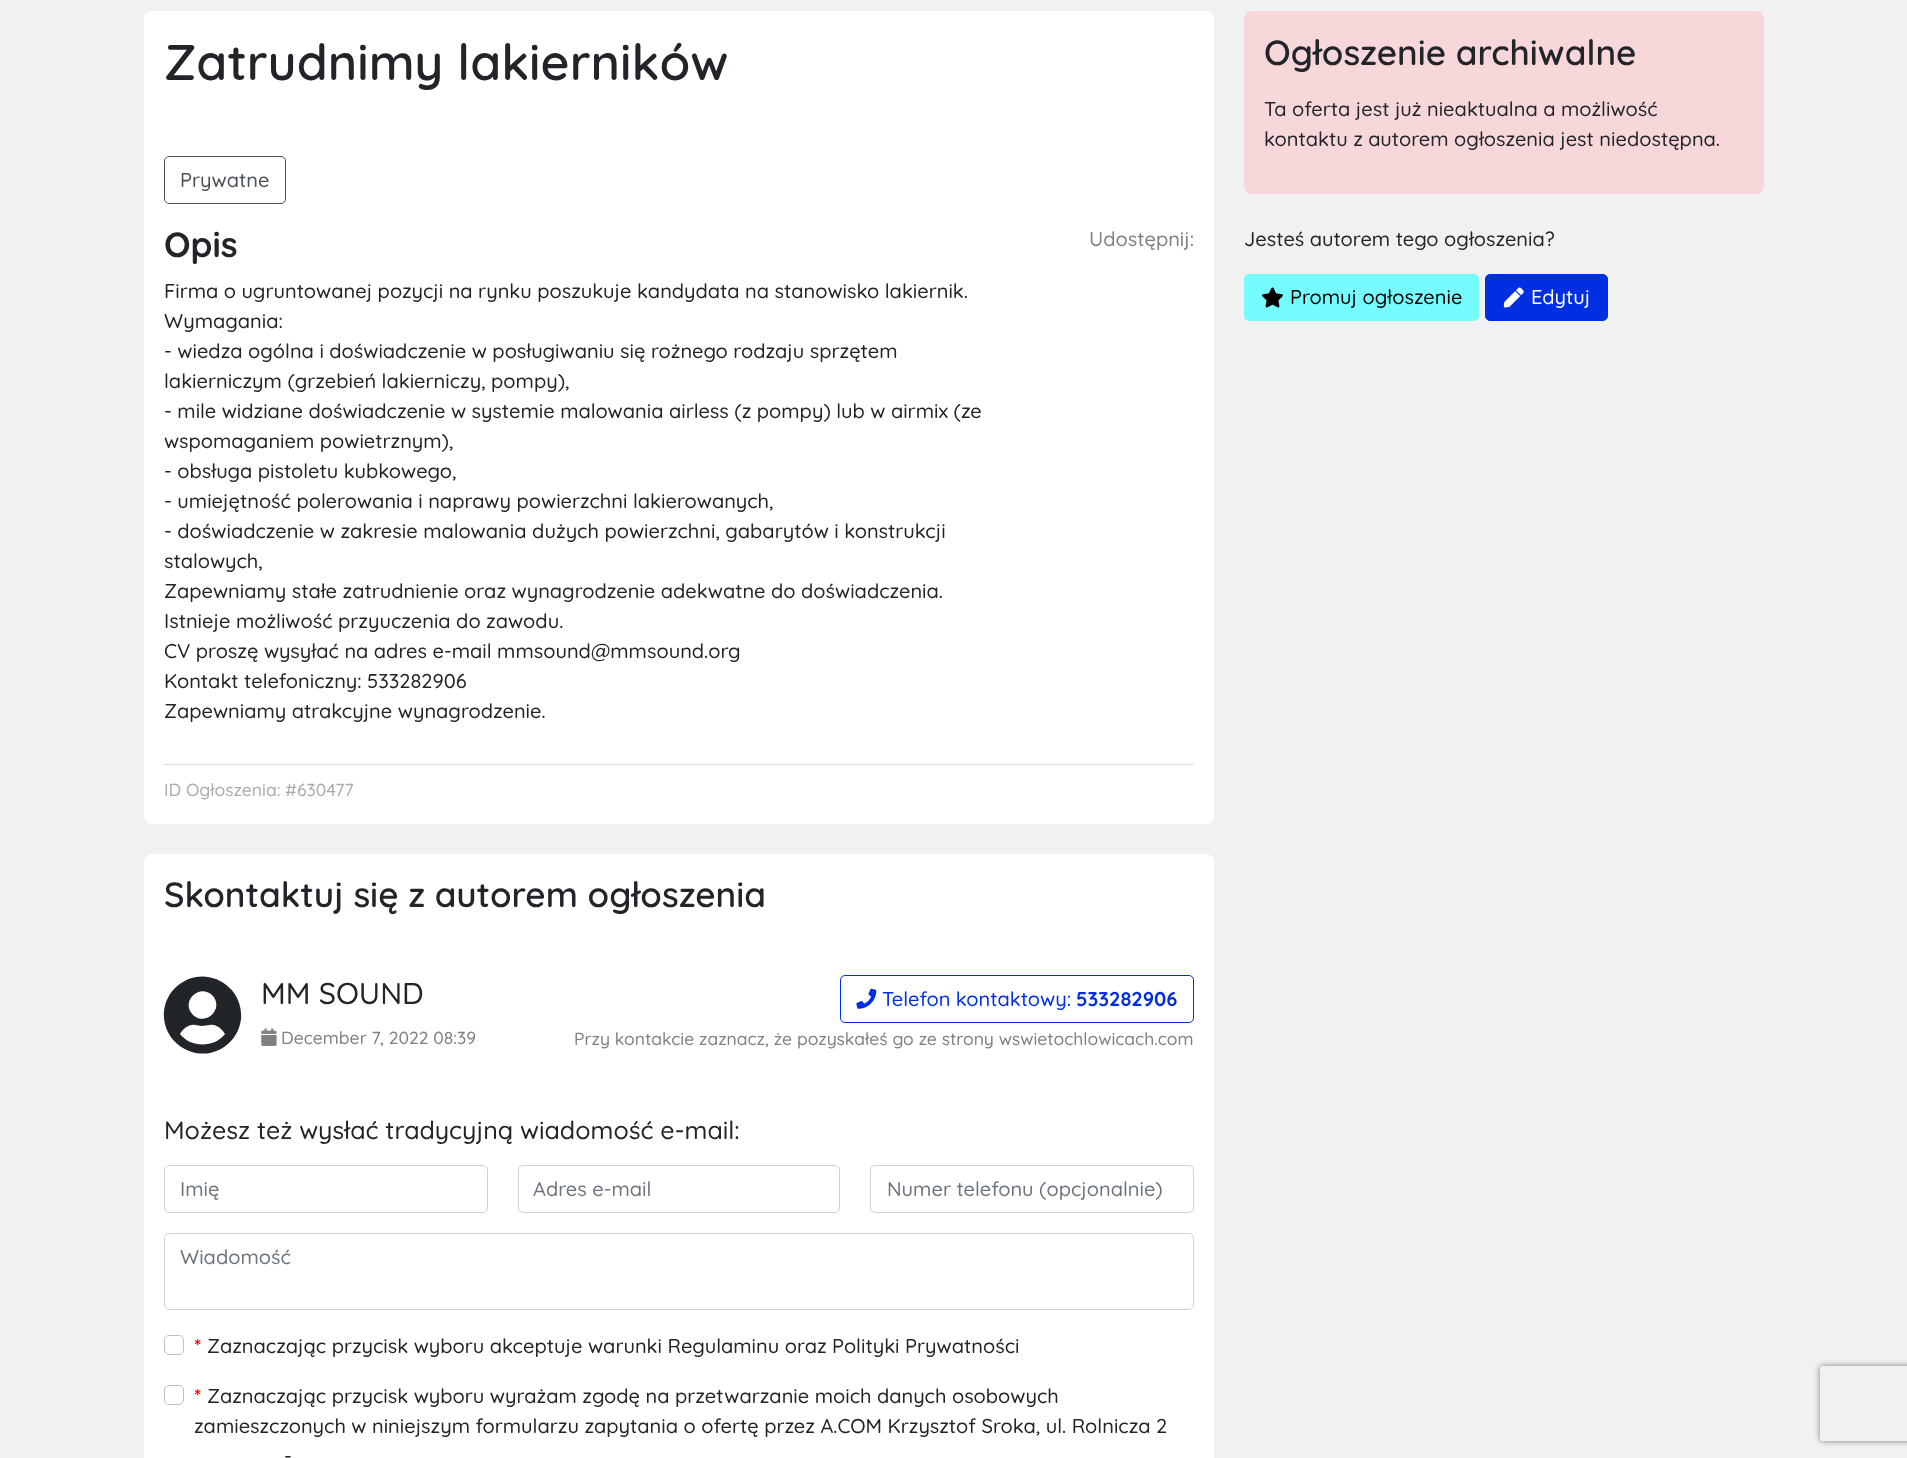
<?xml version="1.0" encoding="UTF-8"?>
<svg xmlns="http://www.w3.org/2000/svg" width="1907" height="1458">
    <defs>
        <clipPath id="clip1"><path d="M 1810 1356 H 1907 V 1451 H 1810 Z M 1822.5 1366 H 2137.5 C 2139 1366 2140 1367 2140 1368.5 V 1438.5 C 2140 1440 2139 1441 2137.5 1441 H 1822.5 C 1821 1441 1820 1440 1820 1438.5 V 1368.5 C 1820 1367 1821 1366 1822.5 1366 Z" clip-rule="evenodd"/></clipPath>
        <filter id="blur1" x="-50%" y="-200%" width="200%" height="500%"><feGaussianBlur stdDeviation="3"/></filter>
    </defs>
    <rect width="100%" height="100%" fill="#F1F1F1"/>
    <rect x="144" y="11" width="1070" height="813" rx="8" fill="#FFFFFF"/>
    <text x="164" y="80" font-family="Quicksand" font-size="50" font-weight="600" fill="#212529">Zatrudnimy lakierników</text>
    <rect x="164.5" y="156.5" width="121" height="47" rx="4.5" fill="none" stroke="#495057"/>
    <text x="180" y="187" font-family="Quicksand" font-size="20" font-weight="500" fill="#495057">Prywatne</text>
    <text x="164" y="257" font-family="Quicksand" font-size="35" font-weight="700" fill="#212529">Opis</text>
    <text font-family="Quicksand" font-size="20" font-weight="500" fill="#212529">
        <tspan x="164" y="298">Firma o ugruntowanej pozycji na rynku poszukuje kandydata na stanowisko lakiernik.</tspan>
        <tspan x="164" y="328">Wymagania:</tspan>
        <tspan x="164" y="358">- wiedza ogólna i doświadczenie w posługiwaniu się rożnego rodzaju sprzętem</tspan>
        <tspan x="164" y="388">lakierniczym (grzebień lakierniczy, pompy),</tspan>
        <tspan x="164" y="418">- mile widziane doświadczenie w systemie malowania airless (z pompy) lub w airmix (ze</tspan>
        <tspan x="164" y="448">wspomaganiem powietrznym),</tspan>
        <tspan x="164" y="478">- obsługa pistoletu kubkowego,</tspan>
        <tspan x="164" y="508">- umiejętność polerowania i naprawy powierzchni lakierowanych,</tspan>
        <tspan x="164" y="538">- doświadczenie w zakresie malowania dużych powierzchni, gabarytów i konstrukcji</tspan>
        <tspan x="164" y="568">stalowych,</tspan>
        <tspan x="164" y="598">Zapewniamy stałe zatrudnienie oraz wynagrodzenie adekwatne do doświadczenia.</tspan>
        <tspan x="164" y="628">Istnieje możliwość przyuczenia do zawodu.</tspan>
        <tspan x="164" y="658">CV proszę wysyłać na adres e-mail mmsound@mmsound.org</tspan>
        <tspan x="164" y="688">Kontakt telefoniczny: 533282906</tspan>
        <tspan x="164" y="718">Zapewniamy atrakcyjne wynagrodzenie.</tspan>
    </text>
    <text x="1089" y="246" font-family="Quicksand" font-size="20" font-weight="500" fill="#808080">Udostępnij:</text>
    <rect x="164" y="764" width="1030" height="1" fill="#DDDDDD"/>
    <text x="164" y="796" font-family="Quicksand" font-size="17.5" font-weight="500" fill="#AAAAAA">ID Ogłoszenia: #630477</text>
    <rect x="144" y="854" width="1070" height="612" rx="8" fill="#FFFFFF"/>
    <text x="164" y="907" font-family="Quicksand" font-size="35" font-weight="600" fill="#212529">Skontaktuj się z autorem ogłoszenia</text>
    <path d="M 175 988 C 201 962 244 983 241 1019 C 240 1028 236 1036 230 1042 C 204 1068 161 1047 164 1011 C 165 1002 169 994 175 988 Z M 212 995 C 199 983 180 1002 193 1015 C 206 1027 225 1008 212 995 Z M 180 1034 C 191 1048 214 1048 225 1034 C 222 1029 216 1024 210 1025 L 202 1026 L 195 1025 C 189 1024 183 1029 180 1034 Z" fill="#212529"/>
    <text x="261" y="1004" font-family="Quicksand" font-size="30" font-weight="500" fill="#212529">MM SOUND</text>
    <image x="261" y="1028" width="16" height="18" href="img_01.png"/>
    <text x="281" y="1044" font-family="Quicksand" font-size="17.5" font-weight="500" fill="#808080">December 7, 2022 08:39</text>
    <rect x="840.5" y="975.5" width="353" height="47" rx="4.5" fill="none" stroke="#002FE2"/>
    <image x="856" y="988" width="21" height="21" href="img_02.png"/>
    <text x="882" y="1006" font-family="Quicksand" font-size="20" font-weight="500" fill="#002FE2">Telefon kontaktowy:</text>
    <text x="1076" y="1006" font-family="Quicksand" font-size="20" font-weight="700" fill="#002FE2">533282906</text>
    <text x="574" y="1045" font-family="Quicksand" font-size="17.5" font-weight="500" fill="#808080">Przy kontakcie zaznacz, że pozyskałeś go ze strony wswietochlowicach.com</text>
    <text x="164" y="1139" font-family="Quicksand" font-size="25" font-weight="500" fill="#212529">Możesz też wysłać tradycyjną wiadomość e-mail:</text>
    <rect x="164.5" y="1165.5" width="323" height="47" rx="4.5" fill="none" stroke="#CED4DA"/>
    <text x="180" y="1196" font-family="Quicksand" font-size="20" font-weight="500" fill="#6C757D">Imię</text>
    <rect x="518.5" y="1165.5" width="321" height="47" rx="4.5" fill="none" stroke="#CED4DA"/>
    <text x="533" y="1196" font-family="Quicksand" font-size="20" font-weight="500" fill="#6C757D">Adres e-mail</text>
    <rect x="870.5" y="1165.5" width="323" height="47" rx="4.5" fill="none" stroke="#CED4DA"/>
    <text x="887" y="1196" font-family="Quicksand" font-size="20" font-weight="500" fill="#6C757D">Numer telefonu (opcjonalnie)</text>
    <rect x="164.5" y="1233.5" width="1029" height="76" rx="4.5" fill="none" stroke="#CED4DA"/>
    <text x="180" y="1264" font-family="Quicksand" font-size="20" font-weight="500" fill="#6C757D">Wiadomość</text>
    <rect x="164.5" y="1335.5" width="19" height="19" rx="4.5" fill="none" stroke="#BFBFBF"/>
    <text x="194" y="1353" font-family="Quicksand" font-size="20" font-weight="700" fill="#FF0000">*</text>
    <text x="207" y="1353" font-family="Quicksand" font-size="20" font-weight="500" fill="#212529">Zaznaczając przycisk wyboru akceptuje warunki Regulaminu oraz Polityki Prywatności</text>
    <rect x="164.5" y="1385.5" width="19" height="19" rx="4.5" fill="none" stroke="#BFBFBF"/>
    <text x="194" y="1403" font-family="Quicksand" font-size="20" font-weight="700" fill="#FF0000">*</text>
    <text x="207" y="1403" font-family="Quicksand" font-size="20" font-weight="500" fill="#212529">Zaznaczając przycisk wyboru wyrażam zgodę na przetwarzanie moich danych osobowych</text>
    <text x="194" y="1433" font-family="Quicksand" font-size="20" font-weight="500" fill="#212529">zamieszczonych w niniejszym formularzu zapytania o ofertę przez A.COM Krzysztof Sroka, ul. Rolnicza 2</text>
    <text x="284" y="1463" font-family="Quicksand" font-size="20" font-weight="500" fill="#212529">-</text>
    <rect x="1244" y="11" width="520" height="183" rx="8" fill="#F8D7DA"/>
    <text x="1264" y="65" font-family="Quicksand" font-size="35" font-weight="600" fill="#212529">Ogłoszenie archiwalne</text>
    <text font-family="Quicksand" font-size="20" font-weight="500" fill="#212529">
        <tspan x="1264" y="116">Ta oferta jest już nieaktualna a możliwość</tspan>
        <tspan x="1264" y="146">kontaktu z autorem ogłoszenia jest niedostępna.</tspan>
    </text>
    <text x="1244" y="246" font-family="Quicksand" font-size="20" font-weight="500" fill="#212529">Jesteś autorem tego ogłoszenia?</text>
    <rect x="1244.5" y="274.5" width="234" height="46" rx="4.5" fill="#74FCFF" stroke="#74FCFF"/>
    <image x="1262" y="287" width="21" height="21" href="img_03.png"/>
    <text x="1290" y="304" font-family="Quicksand" font-size="20" font-weight="500" fill="#000000">Promuj ogłoszenie</text>
    <rect x="1485.5" y="274.5" width="122" height="46" rx="4.5" fill="#002FE2" stroke="#002FE2"/>
    <image x="1503" y="287" width="21" height="21" href="img_04.png"/>
    <text x="1531" y="304" font-family="Quicksand" font-size="20" font-weight="500" fill="#FFFFFF">Edytuj</text>
    <g clip-path="url(#clip1)">
        <rect x="1820" y="1366" width="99" height="75" rx="2.5" fill="#808080" filter="url(#blur1)"/>
    </g>
</svg>
